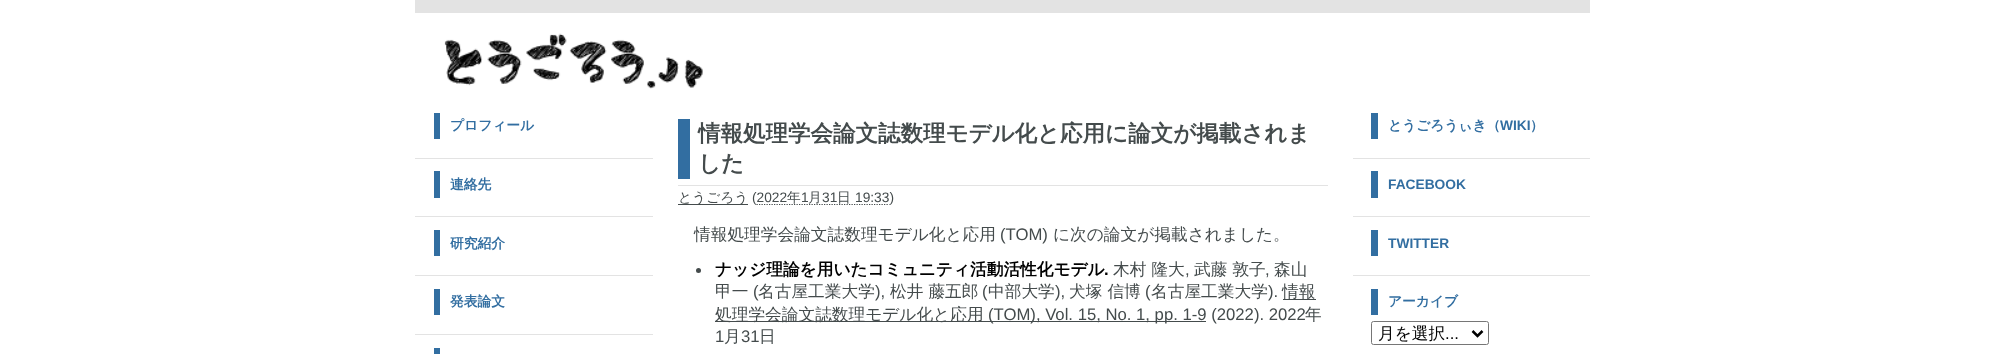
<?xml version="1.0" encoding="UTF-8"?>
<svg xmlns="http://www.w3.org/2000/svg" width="2004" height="354">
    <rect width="100%" height="100%" fill="#FFFFFF"/>
    <rect x="415" y="0" width="1175" height="13" fill="#E3E3E3"/>
    <image x="444" y="33" width="259" height="56" href="img_01.png"/>
    <rect x="415" y="158" width="238" height="1" fill="#E3E3E3"/>
    <rect x="434" y="113" width="6" height="26" fill="#326EA1"/>
    <text x="450" y="130" font-family="WenQuanYi Zen Hei" font-size="13.75" font-weight="700" fill="#326EA1">プロフィール</text>
    <rect x="415" y="216" width="238" height="1" fill="#E3E3E3"/>
    <rect x="434" y="171" width="6" height="27" fill="#326EA1"/>
    <text x="450" y="189" font-family="WenQuanYi Zen Hei" font-size="13.75" font-weight="700" fill="#326EA1">連絡先</text>
    <rect x="415" y="275" width="238" height="1" fill="#E3E3E3"/>
    <rect x="434" y="230" width="6" height="26" fill="#326EA1"/>
    <text x="450" y="248" font-family="WenQuanYi Zen Hei" font-size="13.75" font-weight="700" fill="#326EA1">研究紹介</text>
    <rect x="415" y="334" width="238" height="1" fill="#E3E3E3"/>
    <rect x="434" y="289" width="6" height="26" fill="#326EA1"/>
    <text x="450" y="306" font-family="WenQuanYi Zen Hei" font-size="13.75" font-weight="700" fill="#326EA1">発表論文</text>
    <rect x="434" y="348" width="6" height="6" fill="#326EA1"/>
    <rect x="678" y="119" width="12" height="60" fill="#326EA1"/>
    <text font-family="WenQuanYi Zen Hei" font-size="22.5" font-weight="700" fill="#444B4C">
        <tspan x="698" y="141">情報処理学会論文誌数理モデル化と応用に論文が掲載されま</tspan>
        <tspan x="698" y="171">した</tspan>
    </text>
    <rect x="678" y="185" width="650" height="1" fill="#E3E3E3"/>
    <rect x="678" y="204" width="70" height="1" fill="#444B4C"/>
    <text x="678" y="202" font-family="WenQuanYi Zen Hei" font-size="13.75" font-weight="500" fill="#444B4C">とうごろう</text>
    <text x="752" y="202" font-family="Liberation Sans" font-size="13.75" fill="#444B4C">(2022</text>
    <path d="M 756.5 204.5 H 889.5" fill="none" stroke="#444B4C" stroke-width="1.2" stroke-dasharray="1.25 1.25"/>
    <text x="787" y="202" font-family="WenQuanYi Zen Hei" font-size="13.75" font-weight="500" fill="#444B4C">年</text>
    <text x="801" y="202" font-family="Liberation Sans" font-size="13.75" fill="#444B4C">1</text>
    <text x="808" y="202" font-family="WenQuanYi Zen Hei" font-size="13.75" font-weight="500" fill="#444B4C">月</text>
    <text x="822" y="202" font-family="Liberation Sans" font-size="13.75" fill="#444B4C">31</text>
    <text x="837" y="202" font-family="WenQuanYi Zen Hei" font-size="13.75" font-weight="500" fill="#444B4C">日</text>
    <text x="855" y="202" font-family="Liberation Sans" font-size="13.75" fill="#444B4C">19:33)</text>
    <text x="694" y="240" font-family="WenQuanYi Zen Hei" font-size="16.7" font-weight="500" fill="#444B4C">情報処理学会論文誌数理モデル化と応用</text>
    <text x="1000" y="240" font-family="Liberation Sans" font-size="16.7" fill="#444B4C">(TOM)</text>
    <text x="1053" y="240" font-family="WenQuanYi Zen Hei" font-size="16.7" font-weight="500" fill="#444B4C">に次の論文が掲載されました。</text>
    <circle cx="698.5" cy="270.5" r="2.5" fill="#444B4C"/>
    <text x="715" y="275" font-family="WenQuanYi Zen Hei" font-size="16.7" font-weight="700" fill="#000000">ナッジ理論を用いたコミュニティ活動活性化モデル</text>
    <text x="1113" y="275" font-family="WenQuanYi Zen Hei" font-size="16.7" font-weight="500" fill="#444B4C">木村 隆大</text>
    <text x="1194" y="275" font-family="WenQuanYi Zen Hei" font-size="16.7" font-weight="500" fill="#444B4C">武藤 敦子</text>
    <text x="1274" y="275" font-family="WenQuanYi Zen Hei" font-size="16.7" font-weight="500" fill="#444B4C">森山</text>
    <text x="1104" y="275" font-family="Liberation Sans" font-size="16.7" font-weight="700" fill="#000000">.</text>
    <text x="1185" y="275" font-family="Liberation Sans" font-size="16.7" fill="#444B4C">,</text>
    <text x="1265" y="275" font-family="Liberation Sans" font-size="16.7" fill="#444B4C">,</text>
    <text x="715" y="297" font-family="WenQuanYi Zen Hei" font-size="16.7" font-weight="500" fill="#444B4C">甲一</text>
    <text x="753" y="297" font-family="Liberation Sans" font-size="16.7" fill="#444B4C">(</text>
    <text x="758" y="297" font-family="WenQuanYi Zen Hei" font-size="16.7" font-weight="500" fill="#444B4C">名古屋工業大学</text>
    <text x="875" y="297" font-family="Liberation Sans" font-size="16.7" fill="#444B4C">),</text>
    <text x="890" y="297" font-family="WenQuanYi Zen Hei" font-size="16.7" font-weight="500" fill="#444B4C">松井 藤五郎</text>
    <text x="982" y="297" font-family="Liberation Sans" font-size="16.7" fill="#444B4C">(</text>
    <text x="988" y="297" font-family="WenQuanYi Zen Hei" font-size="16.7" font-weight="500" fill="#444B4C">中部大学</text>
    <text x="1055" y="297" font-family="Liberation Sans" font-size="16.7" fill="#444B4C">),</text>
    <text x="1069" y="297" font-family="WenQuanYi Zen Hei" font-size="16.7" font-weight="500" fill="#444B4C">犬塚 信博</text>
    <text x="1145" y="297" font-family="Liberation Sans" font-size="16.7" fill="#444B4C">(</text>
    <text x="1151" y="297" font-family="WenQuanYi Zen Hei" font-size="16.7" font-weight="500" fill="#444B4C">名古屋工業大学</text>
    <text x="1268" y="297" font-family="Liberation Sans" font-size="16.7" fill="#444B4C">).</text>
    <rect x="1283" y="299" width="33" height="1" fill="#444B4C"/>
    <text x="1282" y="297" font-family="WenQuanYi Zen Hei" font-size="16.7" font-weight="500" fill="#444B4C">情報</text>
    <rect x="715" y="321" width="491" height="1" fill="#444B4C"/>
    <text x="715" y="320" font-family="WenQuanYi Zen Hei" font-size="16.7" font-weight="500" fill="#444B4C">処理学会論文誌数理モデル化と応用</text>
    <text x="988" y="320" font-family="Liberation Sans" font-size="16.7" fill="#444B4C">(TOM), Vol. 15, No. 1, pp. 1-9 (2022). 2022</text>
    <text x="1305" y="320" font-family="WenQuanYi Zen Hei" font-size="16.7" font-weight="500" fill="#444B4C">年</text>
    <text x="715" y="342" font-family="Liberation Sans" font-size="16.7" fill="#444B4C">1</text>
    <text x="724" y="342" font-family="WenQuanYi Zen Hei" font-size="16.7" font-weight="500" fill="#444B4C">月</text>
    <text x="741" y="342" font-family="Liberation Sans" font-size="16.7" fill="#444B4C">31</text>
    <text x="759" y="342" font-family="WenQuanYi Zen Hei" font-size="16.7" font-weight="500" fill="#444B4C">日</text>
    <rect x="1353" y="158" width="237" height="1" fill="#E3E3E3"/>
    <rect x="1371" y="113" width="7" height="26" fill="#326EA1"/>
    <text x="1388" y="130" font-family="WenQuanYi Zen Hei" font-size="13.75" font-weight="700" fill="#326EA1">とうごろうぃき（</text>
    <text x="1500" y="130" font-family="Liberation Sans" font-size="13.75" font-weight="700" fill="#326EA1">WIKI</text>
    <text x="1530" y="130" font-family="WenQuanYi Zen Hei" font-size="13.75" font-weight="700" fill="#326EA1">）</text>
    <rect x="1353" y="216" width="237" height="1" fill="#E3E3E3"/>
    <rect x="1371" y="171" width="7" height="27" fill="#326EA1"/>
    <text x="1388" y="189" font-family="Liberation Sans" font-size="13.75" font-weight="700" fill="#326EA1">FACEBOOK</text>
    <rect x="1353" y="275" width="237" height="1" fill="#E3E3E3"/>
    <rect x="1371" y="230" width="7" height="26" fill="#326EA1"/>
    <text x="1388" y="248" font-family="Liberation Sans" font-size="13.75" font-weight="700" fill="#326EA1">TWITTER</text>
    <rect x="1371" y="289" width="7" height="26" fill="#326EA1"/>
    <text x="1388" y="306" font-family="WenQuanYi Zen Hei" font-size="13.75" font-weight="700" fill="#326EA1">アーカイブ</text>
    <rect x="1371.5" y="321.5" width="117" height="23" rx="2" fill="none" stroke="#767676"/>
    <path d="M 1472.5 331 L 1477.5 336 L 1482.5 331" fill="none" stroke="#000000" stroke-width="2.5"/>
    <text x="1378" y="339" font-family="WenQuanYi Zen Hei" font-size="16.7" font-weight="500" fill="#000000">月を選択</text>
    <text x="1445" y="339" font-family="Liberation Sans" font-size="16.7" fill="#000000">...</text>
</svg>
